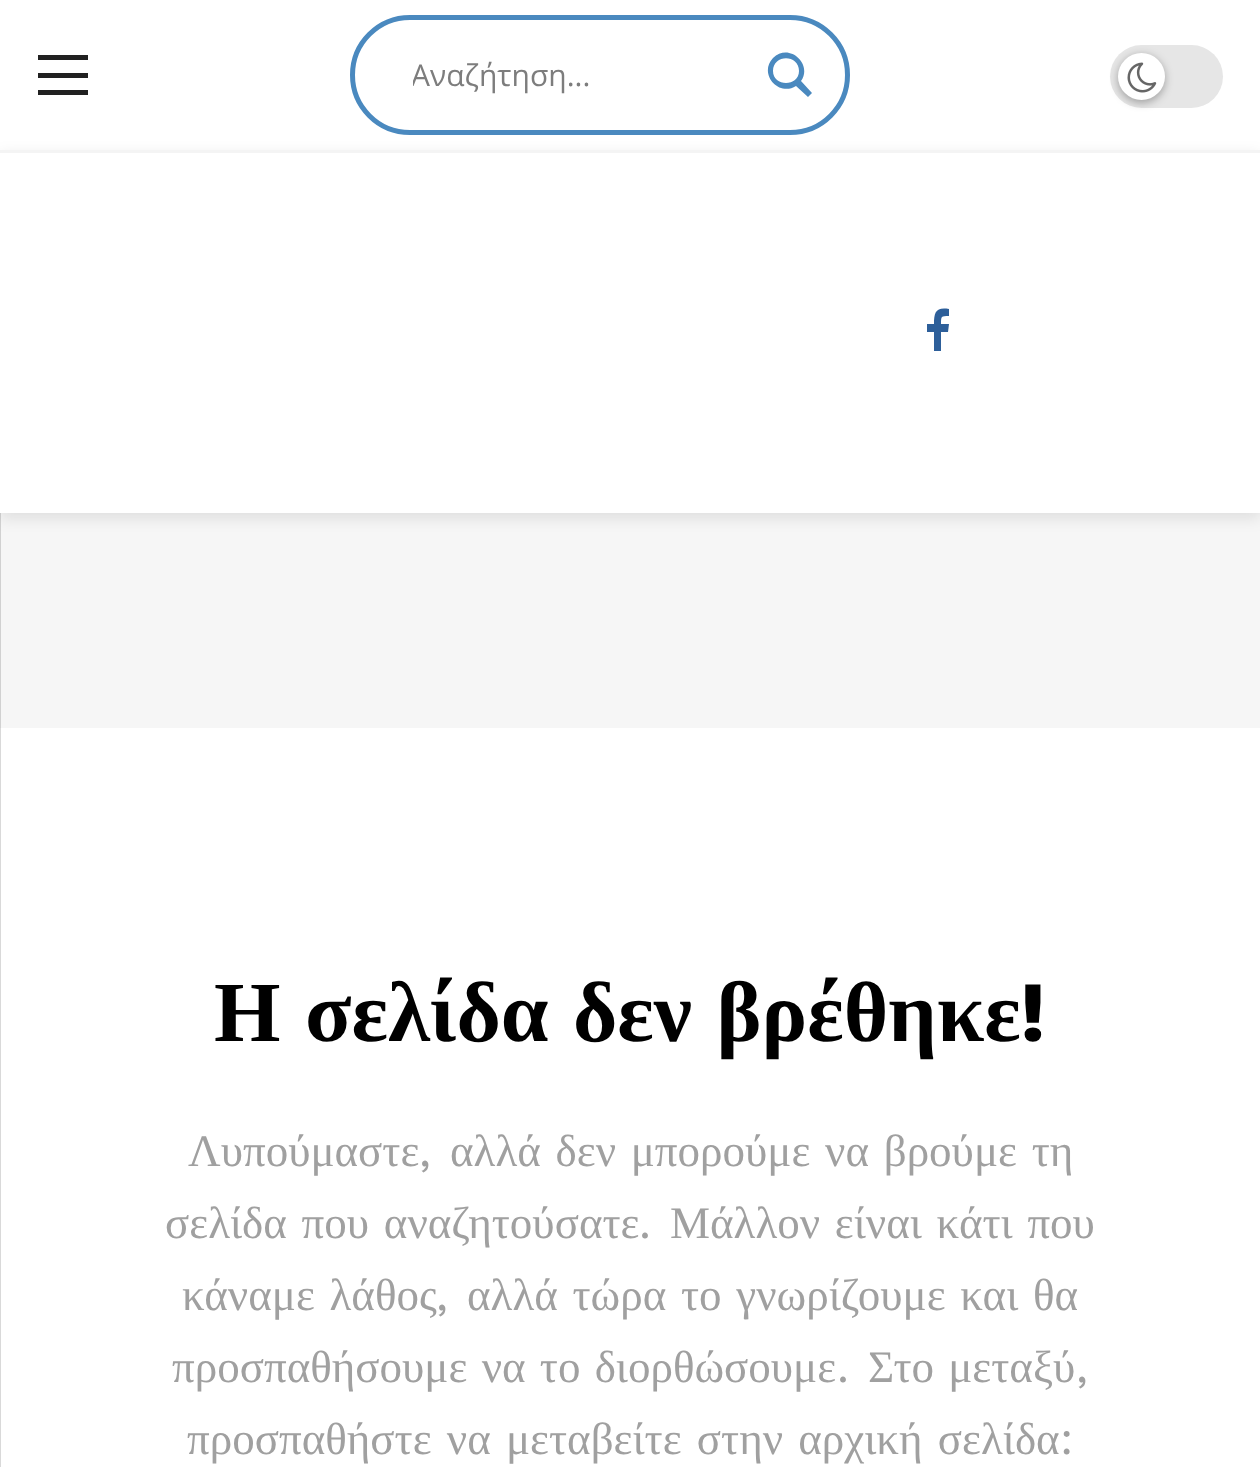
<?xml version="1.0" encoding="UTF-8"?>
<svg xmlns="http://www.w3.org/2000/svg" width="1260" height="1467">
    <defs>
        <filter id="blur1" x="-50%" y="-200%" width="200%" height="500%"><feGaussianBlur stdDeviation="7.5"/></filter>
        <clipPath id="clip1"><rect x="413" y="55" width="330" height="43"/></clipPath>
        <filter id="blur2" x="-50%" y="-200%" width="200%" height="500%"><feGaussianBlur stdDeviation="4"/></filter>
    </defs>
    <rect width="100%" height="100%" fill="#FFFFFF"/>
    <rect x="0" y="728" width="1" height="739" fill="#D9D9D9"/>
    <rect x="38" y="55" width="50" height="5" fill="#212121"/>
    <rect x="38" y="73" width="50" height="5" fill="#212121"/>
    <rect x="38" y="90" width="50" height="5" fill="#212121"/>
    <rect x="1" y="513" width="1259" height="215" fill="#F6F6F6"/>
    <rect x="0" y="513" width="1" height="215" fill="#D1D1D1"/>
    <rect x="0" y="155" width="1260" height="363" fill="#000000" fill-opacity="0.1" filter="url(#blur1)"/>
    <rect x="352.5" y="17.5" width="495" height="115" rx="57.5" fill="none" stroke="#4A89BF" stroke-width="5"/>
    <g clip-path="url(#clip1)">
        <text x="411" y="86" font-family="Open Sans" font-size="30" fill="#7D7D7D">Αναζήτηση...</text>
    </g>
    <path d="M 812 93 L 801 81 C 813 64 789 42 773 58 C 758 74 779 97 796 86 L 808 97 Z M 773 71 C 773 54 799 54 799 71 C 799 87 773 87 773 71 Z" fill="#4A89BF"/>
    <rect x="1110" y="45" width="113" height="63" rx="31.5" fill="#E6E6E6"/>
    <rect x="1118" y="55" width="47" height="48" rx="23.5" fill="#000000" fill-opacity="0.3" filter="url(#blur2)"/>
    <circle cx="1141.5" cy="76.5" r="23.5" fill="#FFFFFF"/>
    <image x="1127" y="62" width="30" height="31" href="img_01.png"/>
    <rect x="0" y="153" width="1260" height="360" fill="#FFFFFF"/>
    <rect x="0" y="150" width="1260" height="3" fill="#F4F4F4"/>
    <path d="M 949 309 C 936 307 934 312 934 324 H 927 V 332 H 934 V 351 H 941 V 332 H 948 L 949 324 H 941 C 941 316 941 316 949 316 Z" fill="#2D5F9A"/>
    <text x="214" y="1041" word-spacing="3" font-family="Liberation Serif" font-size="85.5" font-weight="700" fill="#000000">Η σελίδα δεν βρέθηκε</text>
    <text x="1020" y="1041" font-family="Work Sans" font-size="85.5" font-weight="700" fill="#000000">!</text>
    <text x="188" y="1166" font-family="Liberation Serif" font-size="45" fill="#A0A0A0">Λυπούμαστε</text>
    <text x="419" y="1166" font-family="Work Sans" font-size="45" fill="#A0A0A0">,</text>
    <text x="450" y="1166" word-spacing="3.5" font-family="Liberation Serif" font-size="45" fill="#A0A0A0">αλλά δεν μπορούμε να βρούμε τη</text>
    <text x="165" y="1238" word-spacing="3.5" font-family="Liberation Serif" font-size="45" fill="#A0A0A0">σελίδα που αναζητούσατε</text>
    <text x="639" y="1238" font-family="Work Sans" font-size="45" fill="#A0A0A0">.</text>
    <text x="670" y="1238" word-spacing="3.5" font-family="Liberation Serif" font-size="45" fill="#A0A0A0">Μάλλον είναι κάτι που</text>
    <text x="182" y="1310" word-spacing="3.5" font-family="Liberation Serif" font-size="45" fill="#A0A0A0">κάναμε λάθος</text>
    <text x="436" y="1310" font-family="Work Sans" font-size="45" fill="#A0A0A0">,</text>
    <text x="467" y="1310" word-spacing="3.5" font-family="Liberation Serif" font-size="45" fill="#A0A0A0">αλλά τώρα το γνωρίζουμε και θα</text>
    <text x="172" y="1382" word-spacing="3" font-family="Liberation Serif" font-size="45" fill="#A0A0A0">προσπαθήσουμε να το διορθώσουμε</text>
    <text x="837" y="1382" font-family="Work Sans" font-size="45" fill="#A0A0A0">.</text>
    <text x="868" y="1382" word-spacing="3" font-family="Liberation Serif" font-size="45" fill="#A0A0A0">Στο μεταξύ</text>
    <text x="1076" y="1382" font-family="Work Sans" font-size="45" fill="#A0A0A0">,</text>
    <text x="187" y="1454" word-spacing="4" font-family="Liberation Serif" font-size="45" fill="#A0A0A0">προσπαθήστε να μεταβείτε στην αρχική σελίδα</text>
    <text x="1060" y="1454" font-family="Work Sans" font-size="45" fill="#A0A0A0">:</text>
</svg>
